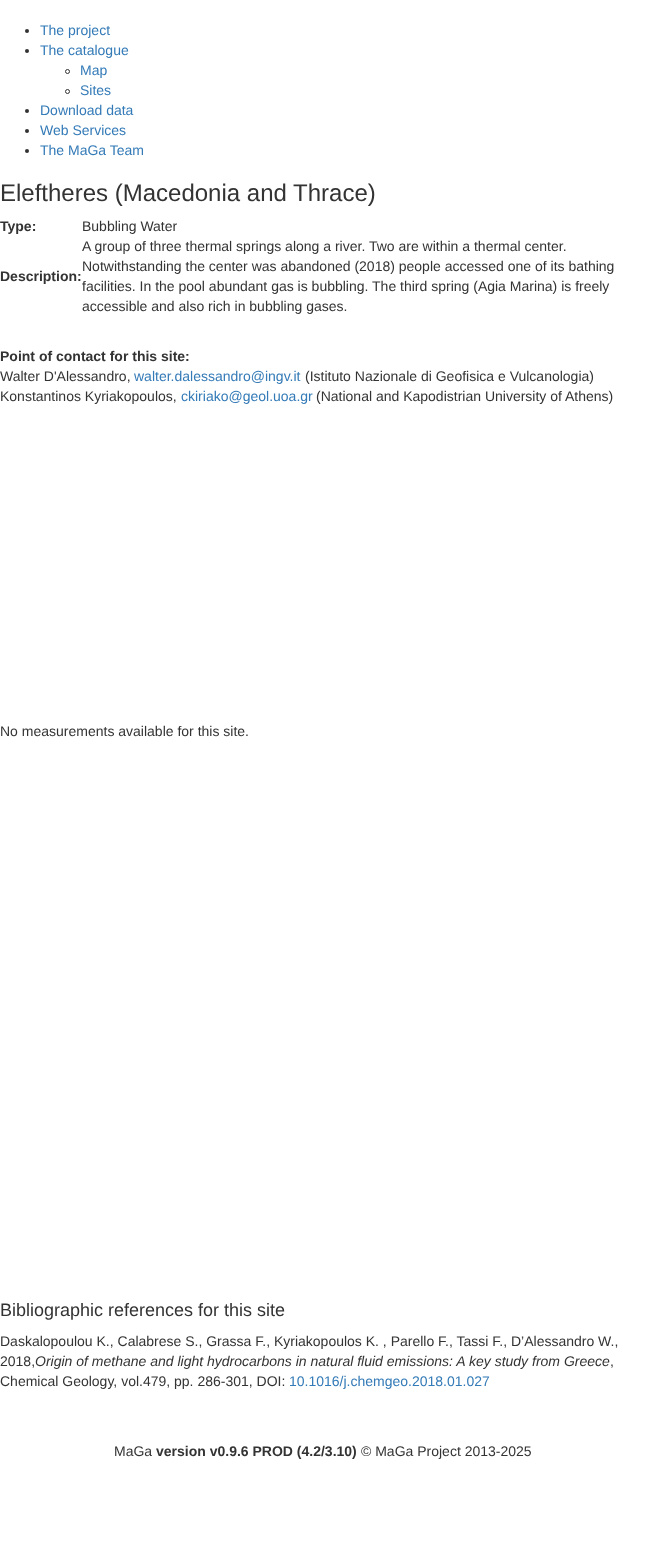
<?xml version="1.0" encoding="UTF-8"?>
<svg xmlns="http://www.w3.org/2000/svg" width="646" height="1542">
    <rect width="100%" height="100%" fill="#FFFFFF"/>
    <circle cx="27" cy="31" r="2" fill="#333333"/>
    <text x="40" y="35" font-family="Liberation Sans" font-size="14" fill="#337AB7">The project</text>
    <circle cx="27" cy="51" r="2" fill="#333333"/>
    <text x="40" y="55" font-family="Liberation Sans" font-size="14" fill="#337AB7">The catalogue</text>
    <circle cx="67.5" cy="71.5" r="2" fill="none" stroke="#333333"/>
    <text x="80" y="75" font-family="Liberation Sans" font-size="14" fill="#337AB7">Map</text>
    <circle cx="67.5" cy="91.5" r="2" fill="none" stroke="#333333"/>
    <text x="80" y="95" font-family="Liberation Sans" font-size="14" fill="#337AB7">Sites</text>
    <circle cx="27" cy="111" r="2" fill="#333333"/>
    <text x="40" y="115" font-family="Liberation Sans" font-size="14" fill="#337AB7">Download data</text>
    <circle cx="27" cy="131" r="2" fill="#333333"/>
    <text x="40" y="135" font-family="Liberation Sans" font-size="14" fill="#337AB7">Web Services</text>
    <circle cx="27" cy="151" r="2" fill="#333333"/>
    <text x="40" y="155" font-family="Liberation Sans" font-size="14" fill="#337AB7">The MaGa Team</text>
    <text x="0" y="201" font-family="Liberation Sans" font-size="24" fill="#333333">Eleftheres (Macedonia and Thrace)</text>
    <text x="0" y="231" font-family="Liberation Sans" font-size="14" font-weight="700" fill="#333333">Type:</text>
    <text x="82" y="231" font-family="Liberation Sans" font-size="14" fill="#333333">Bubbling Water</text>
    <text x="0" y="281" font-family="Liberation Sans" font-size="14" font-weight="700" fill="#333333">Description:</text>
    <text font-family="Liberation Sans" font-size="14" fill="#333333">
        <tspan x="82" y="251">A group of three thermal springs along a river. Two are within a thermal center.</tspan>
        <tspan x="82" y="271">Notwithstanding the center was abandoned (2018) people accessed one of its bathing</tspan>
        <tspan x="82" y="291">facilities. In the pool abundant gas is bubbling. The third spring (Agia Marina) is freely</tspan>
        <tspan x="82" y="311">accessible and also rich in bubbling gases.</tspan>
    </text>
    <text x="0" y="361" font-family="Liberation Sans" font-size="14" font-weight="700" fill="#333333">Point of contact for this site:</text>
    <text x="0" y="381" font-family="Liberation Sans" font-size="14" fill="#333333">Walter D'Alessandro,</text>
    <text x="134" y="381" font-family="Liberation Sans" font-size="14" fill="#337AB7">walter.dalessandro@ingv.it</text>
    <text x="305" y="381" font-family="Liberation Sans" font-size="14" fill="#333333">(Istituto Nazionale di Geofisica e Vulcanologia)</text>
    <text x="0" y="401" font-family="Liberation Sans" font-size="14" fill="#333333">Konstantinos Kyriakopoulos,</text>
    <text x="181" y="401" font-family="Liberation Sans" font-size="14" fill="#337AB7">ckiriako@geol.uoa.gr</text>
    <text x="316" y="401" font-family="Liberation Sans" font-size="14" fill="#333333">(National and Kapodistrian University of Athens)</text>
    <text x="0" y="736" font-family="Liberation Sans" font-size="14" fill="#333333">No measurements available for this site.</text>
    <text x="0" y="1316" font-family="Liberation Sans" font-size="18" fill="#333333">Bibliographic references for this site</text>
    <text font-family="Liberation Sans" font-size="14" fill="#333333">
        <tspan x="0" y="1346">Daskalopoulou K., Calabrese S., Grassa F., Kyriakopoulos K. , Parello F., Tassi F., D’Alessandro W.,</tspan>
        <tspan x="0" y="1366">2018,</tspan>
    </text>
    <text x="35" y="1366" font-family="Liberation Sans" font-size="14" font-style="italic" fill="#333333">Origin of methane and light hydrocarbons in natural fluid emissions: A key study from Greece</text>
    <text x="610" y="1366" font-family="Liberation Sans" font-size="14" fill="#333333">,</text>
    <text x="0" y="1386" font-family="Liberation Sans" font-size="14" fill="#333333">Chemical Geology, vol.479, pp. 286-301, DOI:</text>
    <text x="289" y="1386" font-family="Liberation Sans" font-size="14" fill="#337AB7">10.1016/j.chemgeo.2018.01.027</text>
    <text x="114" y="1456" font-family="Liberation Sans" font-size="14" fill="#333333">MaGa</text>
    <text x="156" y="1456" font-family="Liberation Sans" font-size="14" font-weight="700" fill="#333333">version v0.9.6 PROD (4.2/3.10)</text>
    <text x="361" y="1456" font-family="Liberation Sans" font-size="14" fill="#333333">© MaGa Project 2013-2025</text>
</svg>
